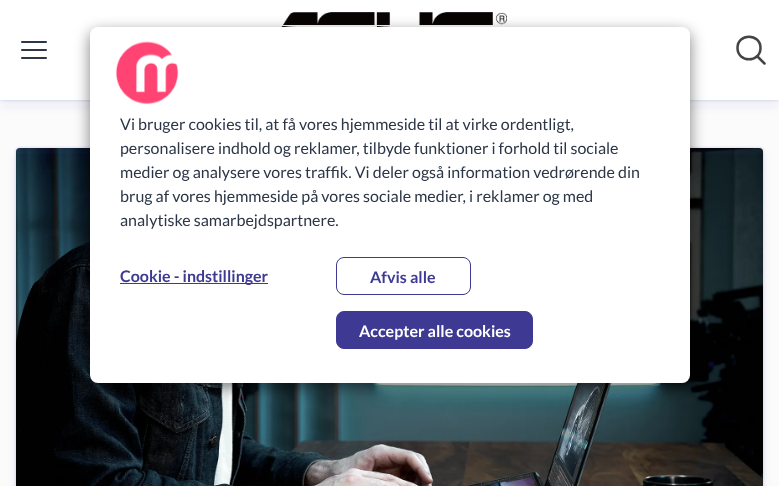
<?xml version="1.0" encoding="UTF-8"?>
<svg xmlns="http://www.w3.org/2000/svg" width="779" height="486">
    <defs>
        <filter id="blur1" x="-50%" y="-200%" width="200%" height="500%"><feGaussianBlur stdDeviation="1"/></filter>
        <filter id="blur2" x="-50%" y="-200%" width="200%" height="500%"><feGaussianBlur stdDeviation="1.5"/></filter>
        <filter id="blur3" x="-50%" y="-200%" width="200%" height="500%"><feGaussianBlur stdDeviation="5"/></filter>
        <clipPath id="clip1"><rect x="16" y="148" width="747" height="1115" rx="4"/></clipPath>
        <filter id="blur4" x="-50%" y="-200%" width="200%" height="500%"><feGaussianBlur stdDeviation="7.5"/></filter>
    </defs>
    <rect width="100%" height="100%" fill="#FBFBFB"/>
    <rect x="0" y="0" width="779" height="100" fill="#3149A4" fill-opacity="0.14" filter="url(#blur1)"/>
    <rect x="0" y="0" width="779" height="100" fill="#3149A4" fill-opacity="0.1" filter="url(#blur2)"/>
    <rect x="0" y="6" width="779" height="100" fill="#3149A4" fill-opacity="0.08" filter="url(#blur3)"/>
    <rect x="0" y="0" width="779" height="100" fill="#FFFFFF"/>
    <image x="281" y="12" width="226" height="15" href="img_01.png"/>
    <path d="M 22 50 H 46 M 22 42 H 46 M 22 58 H 46" fill="none" stroke="#2C3647" stroke-width="2" stroke-linecap="round" stroke-linejoin="round"/>
    <path d="M 760.5 48 C 760.5 63 737.5 63 737.5 48 C 737.5 33 760.5 33 760.5 48 Z M 764.5 63.5 L 757 56" fill="none" stroke="#444444" stroke-width="2.5" stroke-linecap="round"/>
    <rect x="16" y="148" width="747" height="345" rx="4" fill="#3149A4" fill-opacity="0.14" filter="url(#blur1)"/>
    <rect x="16" y="148" width="747" height="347" rx="4" fill="#3149A4" fill-opacity="0.1" filter="url(#blur2)"/>
    <rect x="16" y="154" width="747" height="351" rx="4" fill="#3149A4" fill-opacity="0.08" filter="url(#blur3)"/>
    <image x="16" y="148" width="747" height="4" href="img_02.png"/>
    <image x="16" y="148" width="747" height="338" href="img_03.png"/>
    <g clip-path="url(#clip1)">
        <rect x="-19" y="42" width="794" height="112" rx="4" fill="#3149A4" fill-opacity="0.08" filter="url(#blur3)"/>
    </g>
    <rect x="90" y="32" width="600" height="356" rx="8" fill="#000000" fill-opacity="0.5" filter="url(#blur4)"/>
    <rect x="90" y="27" width="600" height="356" rx="8" fill="#FFFFFF"/>
    <image x="115" y="41" width="64" height="64" href="img_04.png"/>
    <text font-family="Lato" font-size="16" fill="#2C3647">
        <tspan x="120" y="130">Vi bruger cookies til, at få vores hjemmeside til at virke ordentligt,</tspan>
        <tspan x="120" y="154">personalisere indhold og reklamer, tilbyde funktioner i forhold til sociale</tspan>
        <tspan x="120" y="178">medier og analysere vores traffik. Vi deler også information vedrørende din</tspan>
        <tspan x="120" y="202">brug af vores hjemmeside på vores sociale medier, i reklamer og med</tspan>
        <tspan x="120" y="226">analytiske samarbejdspartnere.</tspan>
    </text>
    <rect x="120" y="283" width="148" height="1" fill="#3E3A93"/>
    <text x="120" y="282" font-family="Lato" font-size="16" font-weight="700" fill="#3E3A93">Cookie - indstillinger</text>
    <rect x="336.5" y="257.5" width="134" height="37" rx="7.5" fill="none" stroke="#3E3A93"/>
    <text x="370" y="283" font-family="Lato" font-size="16" font-weight="700" fill="#3E3A93">Afvis alle</text>
    <rect x="336.5" y="311.5" width="196" height="37" rx="7.5" fill="#3E3A93" stroke="#3E3A93"/>
    <text x="359" y="337" font-family="Lato" font-size="16" font-weight="700" fill="#FFFFFF">Accepter alle cookies</text>
</svg>
